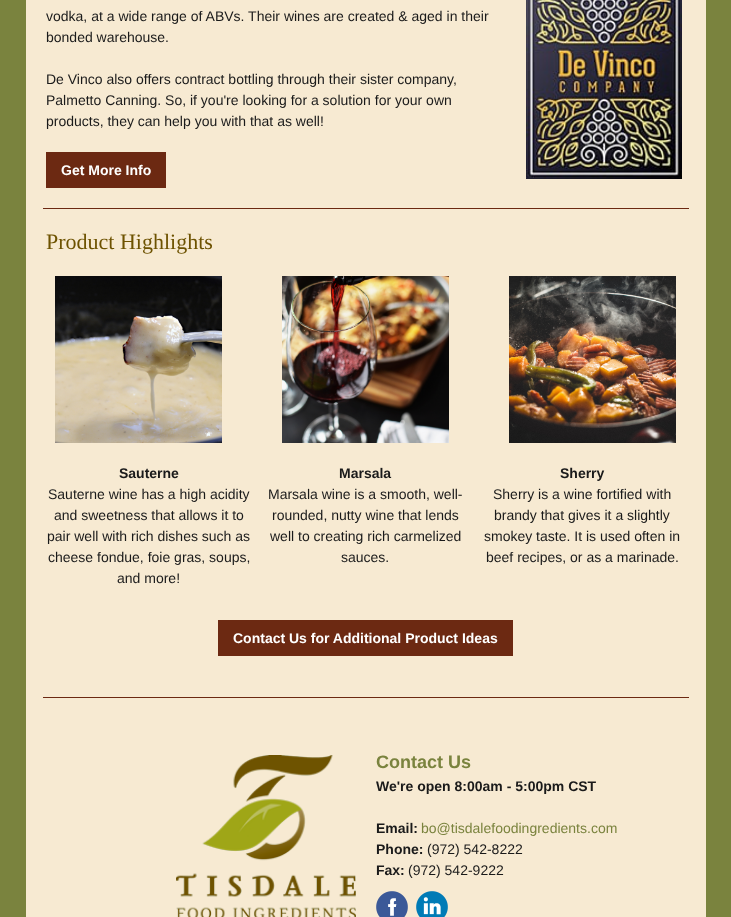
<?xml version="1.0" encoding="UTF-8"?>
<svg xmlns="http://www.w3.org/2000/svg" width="731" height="917">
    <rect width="100%" height="100%" fill="#7A833E"/>
    <rect x="26" y="0" width="680" height="917" fill="#F7EAD2"/>
    <text font-family="Liberation Sans" font-size="14" fill="#1A1A1A">
        <tspan x="46" y="21">vodka, at a wide range of ABVs. Their wines are created &amp; aged in their</tspan>
        <tspan x="46" y="42">bonded warehouse.</tspan>
    </text>
    <text font-family="Liberation Sans" font-size="14" fill="#1A1A1A">
        <tspan x="46" y="84">De Vinco also offers contract bottling through their sister company,</tspan>
        <tspan x="46" y="105">Palmetto Canning. So, if you're looking for a solution for your own</tspan>
        <tspan x="46" y="126">products, they can help you with that as well!</tspan>
    </text>
    <rect x="46" y="152" width="120" height="36" fill="#6C2912"/>
    <text x="61" y="175" font-family="Liberation Sans" font-size="14" font-weight="700" fill="#FFFFFF">Get More Info</text>
    <image x="526" y="0" width="156" height="179" href="img_01.png"/>
    <rect x="43" y="208" width="646" height="1" fill="#6C2912"/>
    <text x="46" y="249" font-family="Liberation Serif" font-size="22" fill="#6D5200">Product Highlights</text>
    <image x="55" y="276" width="167" height="167" href="img_02.png"/>
    <text x="119" y="478" font-family="Liberation Sans" font-size="14" font-weight="700" fill="#1A1A1A">Sauterne</text>
    <text x="48" y="499" font-family="Liberation Sans" font-size="14" fill="#1A1A1A">Sauterne wine has a high acidity</text>
    <text x="54" y="520" font-family="Liberation Sans" font-size="14" fill="#1A1A1A">and sweetness that allows it to</text>
    <text x="47" y="541" font-family="Liberation Sans" font-size="14" fill="#1A1A1A">pair well with rich dishes such as</text>
    <text x="48" y="562" font-family="Liberation Sans" font-size="14" fill="#1A1A1A">cheese fondue, foie gras, soups,</text>
    <text x="117" y="583" font-family="Liberation Sans" font-size="14" fill="#1A1A1A">and more!</text>
    <image x="282" y="276" width="167" height="167" href="img_03.png"/>
    <text x="339" y="478" font-family="Liberation Sans" font-size="14" font-weight="700" fill="#1A1A1A">Marsala</text>
    <text x="268" y="499" font-family="Liberation Sans" font-size="14" fill="#1A1A1A">Marsala wine is a smooth, well-</text>
    <text x="272" y="520" font-family="Liberation Sans" font-size="14" fill="#1A1A1A">rounded, nutty wine that lends</text>
    <text x="270" y="541" font-family="Liberation Sans" font-size="14" fill="#1A1A1A">well to creating rich carmelized</text>
    <text x="341" y="562" font-family="Liberation Sans" font-size="14" fill="#1A1A1A">sauces.</text>
    <image x="509" y="276" width="167" height="167" href="img_04.png"/>
    <text x="560" y="478" font-family="Liberation Sans" font-size="14" font-weight="700" fill="#1A1A1A">Sherry</text>
    <text x="493" y="499" font-family="Liberation Sans" font-size="14" fill="#1A1A1A">Sherry is a wine fortified with</text>
    <text x="494" y="520" font-family="Liberation Sans" font-size="14" fill="#1A1A1A">brandy that gives it a slightly</text>
    <text x="484" y="541" font-family="Liberation Sans" font-size="14" fill="#1A1A1A">smokey taste. It is used often in</text>
    <text x="486" y="562" font-family="Liberation Sans" font-size="14" fill="#1A1A1A">beef recipes, or as a marinade.</text>
    <rect x="218" y="620" width="295" height="36" fill="#6C2912"/>
    <text x="233" y="643" font-family="Liberation Sans" font-size="14" font-weight="700" fill="#FFFFFF">Contact Us for Additional Product Ideas</text>
    <rect x="43" y="697" width="646" height="1" fill="#6C2912"/>
    <image x="176" y="755" width="180" height="162" href="img_05.png"/>
    <text x="376" y="768" font-family="Liberation Sans" font-size="18" font-weight="700" fill="#7A833E">Contact Us</text>
    <text x="376" y="791" font-family="Liberation Sans" font-size="14" font-weight="700" fill="#1A1A1A">We're open 8:00am - 5:00pm CST</text>
    <text x="376" y="833" font-family="Liberation Sans" font-size="14" font-weight="700" fill="#1A1A1A">Email:</text>
    <text x="421" y="833" font-family="Liberation Sans" font-size="14" fill="#7A833E">bo@tisdalefoodingredients.com</text>
    <text x="376" y="854" font-family="Liberation Sans" font-size="14" font-weight="700" fill="#1A1A1A">Phone:</text>
    <text x="427" y="854" font-family="Liberation Sans" font-size="14" fill="#1A1A1A">(972) 542-8222</text>
    <text x="376" y="875" font-family="Liberation Sans" font-size="14" font-weight="700" fill="#1A1A1A">Fax:</text>
    <text x="408" y="875" font-family="Liberation Sans" font-size="14" fill="#1A1A1A">(972) 542-9222</text>
    <image x="376" y="891" width="32" height="26" href="img_06.png"/>
    <image x="416" y="891" width="32" height="26" href="img_07.png"/>
</svg>
